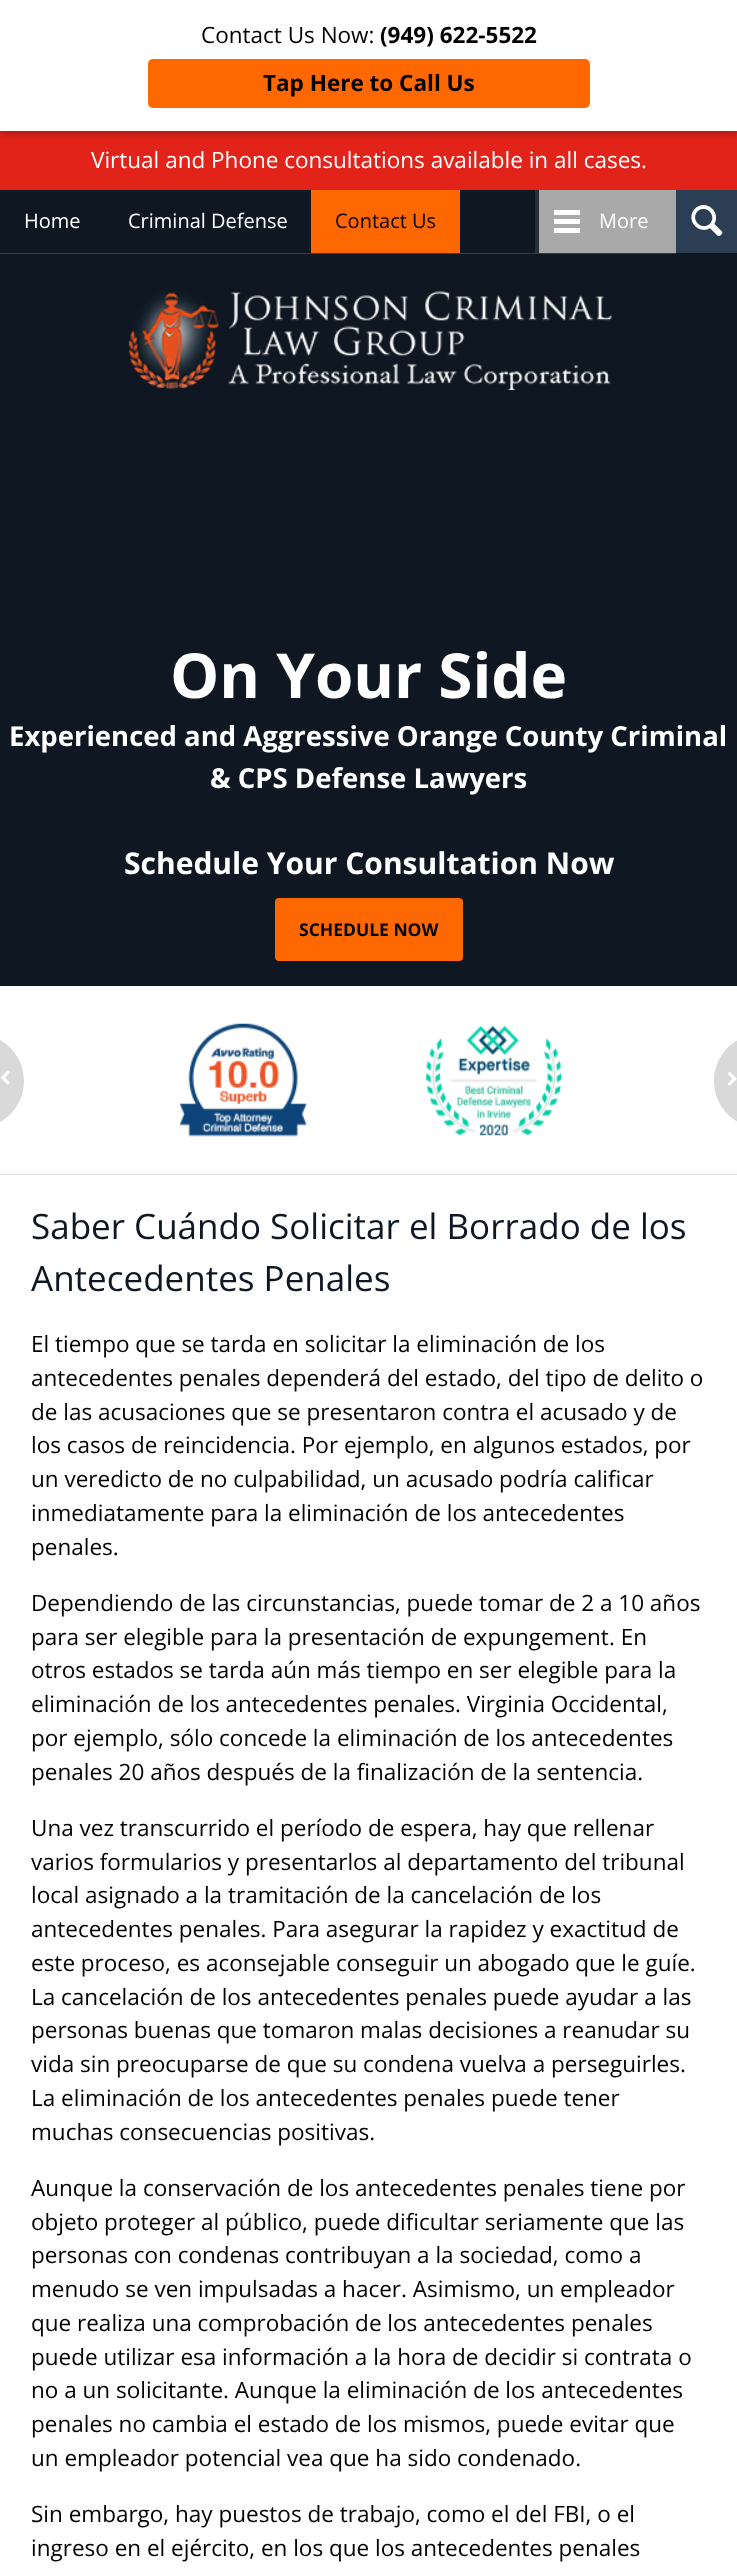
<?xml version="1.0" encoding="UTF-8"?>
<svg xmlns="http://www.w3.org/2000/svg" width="737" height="2570">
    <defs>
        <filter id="blur1" x="-50%" y="-200%" width="200%" height="500%"><feGaussianBlur stdDeviation="3"/></filter>
    </defs>
    <rect width="100%" height="100%" fill="#FFFFFF"/>
    <rect x="0" y="131" width="737" height="59" fill="#E2231A"/>
    <rect x="0" y="3" width="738" height="131" fill="#000000" fill-opacity="0.26" filter="url(#blur1)"/>
    <rect x="0" y="0" width="737" height="131" fill="#FFFFFF"/>
    <text x="201" y="43" font-family="Open Sans" font-size="22.5" fill="#010101">Contact Us Now:</text>
    <text x="380" y="43" font-family="Open Sans" font-size="22.5" font-weight="700" fill="#010101">(949) 622-5522</text>
    <rect x="148" y="59" width="442" height="49" rx="5" fill="#FF6701"/>
    <text x="263" y="91" font-family="Open Sans" font-size="22.5" font-weight="700" fill="#010101">Tap Here to Call Us</text>
    <text x="91" y="168" font-family="Open Sans" font-size="22.5" fill="#FFFFFF">Virtual and Phone consultations available in all cases.</text>
    <rect x="0" y="253" width="737" height="733" fill="#0E1722"/>
    <rect x="0" y="253" width="676" height="1" fill="#2C3E54"/>
    <rect x="0" y="190" width="535" height="63" fill="#0E1722"/>
    <text x="24" y="228" font-family="Open Sans" font-size="20" fill="#FFFFFF">Home</text>
    <text x="128" y="228" font-family="Open Sans" font-size="20" fill="#FFFFFF">Criminal Defense</text>
    <rect x="311" y="190" width="149" height="63" fill="#FF6701"/>
    <text x="335" y="228" font-family="Open Sans" font-size="20" fill="#010101">Contact Us</text>
    <rect x="539" y="190" width="137" height="63" fill="#A9A9A9"/>
    <rect x="535" y="190" width="4" height="63" fill="#262E38"/>
    <rect x="554" y="228" width="26" height="5" fill="#FFFFFF"/>
    <rect x="554" y="219" width="26" height="5" fill="#FFFFFF"/>
    <rect x="554" y="210" width="26" height="5" fill="#FFFFFF"/>
    <text x="599" y="228" font-family="Open Sans" font-size="20" fill="#FFFFFF">More</text>
    <image x="128" y="291" width="484" height="99" href="img_01.png"/>
    <rect x="676" y="190" width="61" height="63" fill="#2C3E54"/>
    <image x="691" y="205" width="32" height="31" href="img_02.png"/>
    <text x="170" y="698" font-family="Open Sans" font-size="62" font-weight="700" fill="#FFFFFF">On Your Side</text>
    <text x="9" y="746" font-family="Open Sans" font-size="27.5" font-weight="700" fill="#FFFFFF">Experienced and Aggressive Orange County Criminal</text>
    <text x="210" y="788" font-family="Open Sans" font-size="27.5" font-weight="700" fill="#FFFFFF">&amp; CPS Defense Lawyers</text>
    <text x="124" y="874" font-family="Open Sans" font-size="30" font-weight="700" fill="#FFFFFF">Schedule Your Consultation Now</text>
    <rect x="275" y="898" width="188" height="63" rx="4" fill="#FF6701"/>
    <text x="299" y="936" font-family="Open Sans" font-size="17.5" font-weight="700" fill="#010101">SCHEDULE NOW</text>
    <rect x="0" y="1174" width="737" height="1" fill="#DDDDDD"/>
    <path d="M 0 1034 H -23 C 3 1034 24 1055 24 1081 C 24 1107 3 1128 -23 1128 H 0 Z" fill="#D9D9D9"/>
    <image x="0" y="1070" width="10" height="15" href="img_03.png"/>
    <image x="180" y="1023" width="127" height="114" href="img_04.png"/>
    <image x="426" y="1025" width="136" height="111" href="img_05.png"/>
    <path d="M 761 1034 H 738 V 1128 H 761 C 735 1128 714 1107 714 1081 C 714 1055 735 1034 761 1034 Z" fill="#D9D9D9"/>
    <image x="727" y="1071" width="10" height="15" href="img_06.png"/>
    <text font-family="Open Sans" font-size="35" fill="#0E1722">
        <tspan x="31" y="1239">Saber Cuándo Solicitar el Borrado de los</tspan>
        <tspan x="31" y="1291">Antecedentes Penales</tspan>
    </text>
    <text font-family="Open Sans" font-size="22.5" fill="#010101">
        <tspan x="31" y="1352">El tiempo que se tarda en solicitar la eliminación de los</tspan>
        <tspan x="31" y="1386">antecedentes penales dependerá del estado, del tipo de delito o</tspan>
        <tspan x="31" y="1420">de las acusaciones que se presentaron contra el acusado y de</tspan>
        <tspan x="31" y="1453">los casos de reincidencia. Por ejemplo, en algunos estados, por</tspan>
        <tspan x="31" y="1487">un veredicto de no culpabilidad, un acusado podría calificar</tspan>
        <tspan x="31" y="1521">inmediatamente para la eliminación de los antecedentes</tspan>
        <tspan x="31" y="1555">penales.</tspan>
    </text>
    <text font-family="Open Sans" font-size="22.5" fill="#010101">
        <tspan x="31" y="1611">Dependiendo de las circunstancias, puede tomar de 2 a 10 años</tspan>
        <tspan x="31" y="1645">para ser elegible para la presentación de expungement. En</tspan>
        <tspan x="31" y="1678">otros estados se tarda aún más tiempo en ser elegible para la</tspan>
        <tspan x="31" y="1712">eliminación de los antecedentes penales. Virginia Occidental,</tspan>
        <tspan x="31" y="1746">por ejemplo, sólo concede la eliminación de los antecedentes</tspan>
        <tspan x="31" y="1780">penales 20 años después de la finalización de la sentencia.</tspan>
    </text>
    <text font-family="Open Sans" font-size="22.5" fill="#010101">
        <tspan x="31" y="1836">Una vez transcurrido el período de espera, hay que rellenar</tspan>
        <tspan x="31" y="1870">varios formularios y presentarlos al departamento del tribunal</tspan>
        <tspan x="31" y="1903">local asignado a la tramitación de la cancelación de los</tspan>
        <tspan x="31" y="1937">antecedentes penales. Para asegurar la rapidez y exactitud de</tspan>
        <tspan x="31" y="1971">este proceso, es aconsejable conseguir un abogado que le guíe.</tspan>
        <tspan x="31" y="2005">La cancelación de los antecedentes penales puede ayudar a las</tspan>
        <tspan x="31" y="2038">personas buenas que tomaron malas decisiones a reanudar su</tspan>
        <tspan x="31" y="2072">vida sin preocuparse de que su condena vuelva a perseguirles.</tspan>
        <tspan x="31" y="2106">La eliminación de los antecedentes penales puede tener</tspan>
        <tspan x="31" y="2140">muchas consecuencias positivas.</tspan>
    </text>
    <text font-family="Open Sans" font-size="22.5" fill="#010101">
        <tspan x="31" y="2196">Aunque la conservación de los antecedentes penales tiene por</tspan>
        <tspan x="31" y="2230">objeto proteger al público, puede dificultar seriamente que las</tspan>
        <tspan x="31" y="2263">personas con condenas contribuyan a la sociedad, como a</tspan>
        <tspan x="31" y="2297">menudo se ven impulsadas a hacer. Asimismo, un empleador</tspan>
        <tspan x="31" y="2331">que realiza una comprobación de los antecedentes penales</tspan>
        <tspan x="31" y="2365">puede utilizar esa información a la hora de decidir si contrata o</tspan>
        <tspan x="31" y="2398">no a un solicitante. Aunque la eliminación de los antecedentes</tspan>
        <tspan x="31" y="2432">penales no cambia el estado de los mismos, puede evitar que</tspan>
        <tspan x="31" y="2466">un empleador potencial vea que ha sido condenado.</tspan>
    </text>
    <text font-family="Open Sans" font-size="22.5" fill="#010101">
        <tspan x="31" y="2522">Sin embargo, hay puestos de trabajo, como el del FBI, o el</tspan>
        <tspan x="31" y="2556">ingreso en el ejército, en los que los antecedentes penales</tspan>
    </text>
</svg>
